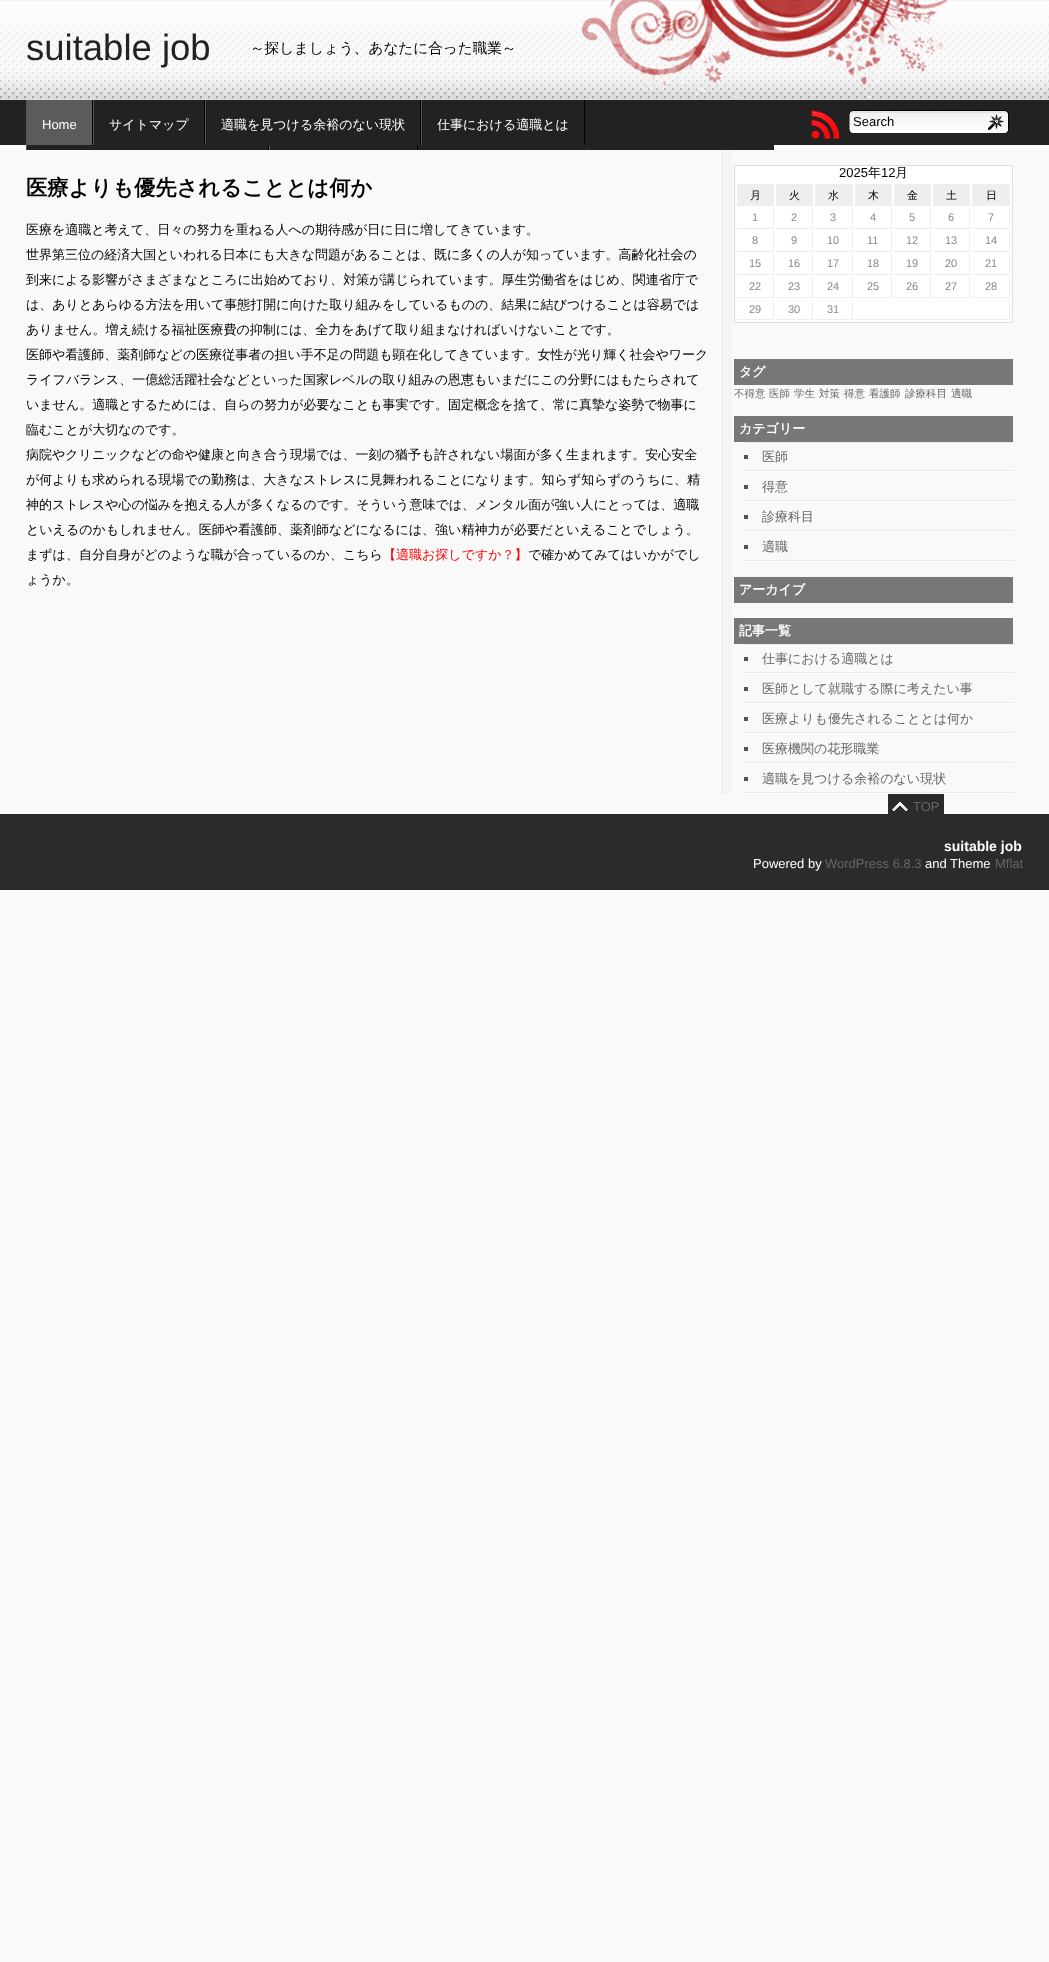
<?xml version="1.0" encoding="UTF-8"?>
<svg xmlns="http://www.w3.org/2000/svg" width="1049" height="1962">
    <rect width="100%" height="100%" fill="#F9F9F9"/>
    <image x="0" y="0" width="1049" height="100" href="img_01.png"/>
    <text x="26" y="60" font-family="Liberation Sans" font-size="36.5" fill="#222222">suitable job</text>
    <image x="581" y="0" width="368" height="98" href="img_02.png"/>
    <text x="250" y="53" font-family="WenQuanYi Zen Hei" font-size="14.6" font-weight="500" fill="#000000">～探しましょう、あなたに合った職業～</text>
    <rect x="0" y="100" width="1049" height="45" fill="#222222"/>
    <rect x="27" y="145" width="747" height="5" fill="#222222"/>
    <rect x="27" y="100" width="65" height="45" fill="#5B5B5B"/>
    <rect x="92" y="100" width="1" height="45" fill="#000000"/>
    <rect x="26" y="100" width="1" height="50" fill="#555555"/>
    <text x="42" y="129" font-family="Liberation Sans" font-size="13" fill="#FFFFFF">Home</text>
    <rect x="204" y="100" width="1" height="45" fill="#000000"/>
    <rect x="93" y="100" width="1" height="45" fill="#555555"/>
    <text x="109" y="129" font-family="WenQuanYi Zen Hei" font-size="13" font-weight="500" fill="#FFFFFF">サイトマップ</text>
    <rect x="420" y="100" width="1" height="45" fill="#000000"/>
    <rect x="205" y="100" width="1" height="45" fill="#555555"/>
    <text x="221" y="129" font-family="WenQuanYi Zen Hei" font-size="13" font-weight="500" fill="#FFFFFF">適職を見つける余裕のない現状</text>
    <rect x="584" y="100" width="1" height="45" fill="#000000"/>
    <rect x="421" y="100" width="1" height="45" fill="#555555"/>
    <text x="437" y="129" font-family="WenQuanYi Zen Hei" font-size="13" font-weight="500" fill="#FFFFFF">仕事における適職とは</text>
    <rect x="268" y="145" width="1" height="5" fill="#000000"/>
    <rect x="417" y="145" width="1" height="5" fill="#000000"/>
    <rect x="269" y="145" width="1" height="5" fill="#555555"/>
    <image x="811" y="110" width="28" height="29" href="img_03.png"/>
    <image x="849" y="110" width="160" height="23" href="img_04.png"/>
    <text x="853" y="126" font-family="Liberation Sans" font-size="13" fill="#000000">Search</text>
    <image x="720" y="150" width="12" height="644" href="img_05.png"/>
    <text x="26" y="195" font-family="WenQuanYi Zen Hei" font-size="21.3" font-weight="700" fill="#000000">医療よりも優先されることとは何か</text>
    <text font-family="WenQuanYi Zen Hei" font-size="13" font-weight="500" fill="#000000">
        <tspan x="26" y="234">医療を適職と考えて、日々の努力を重ねる人への期待感が日に日に増してきています。</tspan>
        <tspan x="26" y="259">世界第三位の経済大国といわれる日本にも大きな問題があることは、既に多くの人が知っています。高齢化社会の</tspan>
        <tspan x="26" y="284">到来による影響がさまざまなところに出始めており、対策が講じられています。厚生労働省をはじめ、関連省庁で</tspan>
        <tspan x="26" y="309">は、ありとあらゆる方法を用いて事態打開に向けた取り組みをしているものの、結果に結びつけることは容易では</tspan>
        <tspan x="26" y="334">ありません。増え続ける福祉医療費の抑制には、全力をあげて取り組まなければいけないことです。</tspan>
        <tspan x="26" y="359">医師や看護師、薬剤師などの医療従事者の担い手不足の問題も顕在化してきています。女性が光り輝く社会やワーク</tspan>
        <tspan x="26" y="384">ライフバランス、一億総活躍社会などといった国家レベルの取り組みの恩恵もいまだにこの分野にはもたらされて</tspan>
        <tspan x="26" y="409">いません。適職とするためには、自らの努力が必要なことも事実です。固定概念を捨て、常に真摯な姿勢で物事に</tspan>
        <tspan x="26" y="434">臨むことが大切なのです。</tspan>
        <tspan x="26" y="459">病院やクリニックなどの命や健康と向き合う現場では、一刻の猶予も許されない場面が多く生まれます。安心安全</tspan>
        <tspan x="26" y="484">が何よりも求められる現場での勤務は、大きなストレスに見舞われることになります。知らず知らずのうちに、精</tspan>
        <tspan x="26" y="509">神的ストレスや心の悩みを抱える人が多くなるのです。そういう意味では、メンタル面が強い人にとっては、適職</tspan>
        <tspan x="26" y="534">といえるのかもしれません。医師や看護師、薬剤師などになるには、強い精神力が必要だといえることでしょう。</tspan>
        <tspan x="26" y="559">まずは、自分自身がどのような職が合っているのか、こちら</tspan>
    </text>
    <text x="383" y="559" font-family="WenQuanYi Zen Hei" font-size="13" font-weight="500" fill="#FF0000">【適職お探しですか？】</text>
    <text x="528" y="559" font-family="WenQuanYi Zen Hei" font-size="13" font-weight="500" fill="#000000">で確かめてみてはいかがでし</text>
    <text x="26" y="584" font-family="WenQuanYi Zen Hei" font-size="13" font-weight="500" fill="#000000">ょうか。</text>
    <rect x="734.5" y="165.5" width="278" height="157" fill="#FFFFFF" stroke="#DDDDDD"/>
    <text x="839" y="177" font-family="Liberation Sans" font-size="13" fill="#000000">2025</text>
    <text x="868" y="177" font-family="WenQuanYi Zen Hei" font-size="13" font-weight="500" fill="#000000">年</text>
    <text x="881" y="177" font-family="Liberation Sans" font-size="13" fill="#000000">12</text>
    <text x="895" y="177" font-family="WenQuanYi Zen Hei" font-size="13" font-weight="500" fill="#000000">月</text>
    <rect x="737" y="184" width="37" height="22" fill="#EEEEEE"/>
    <text x="750" y="199" font-family="WenQuanYi Zen Hei" font-size="11" font-weight="500" fill="#000000">月</text>
    <rect x="776" y="184" width="37" height="22" fill="#EEEEEE"/>
    <text x="789" y="199" font-family="WenQuanYi Zen Hei" font-size="11" font-weight="500" fill="#000000">火</text>
    <rect x="815" y="184" width="38" height="22" fill="#EEEEEE"/>
    <text x="828" y="199" font-family="WenQuanYi Zen Hei" font-size="11" font-weight="500" fill="#000000">水</text>
    <rect x="855" y="184" width="37" height="22" fill="#EEEEEE"/>
    <text x="868" y="199" font-family="WenQuanYi Zen Hei" font-size="11" font-weight="500" fill="#000000">木</text>
    <rect x="894" y="184" width="37" height="22" fill="#EEEEEE"/>
    <text x="907" y="199" font-family="WenQuanYi Zen Hei" font-size="11" font-weight="500" fill="#000000">金</text>
    <rect x="933" y="184" width="37" height="22" fill="#EEEEEE"/>
    <text x="946" y="199" font-family="WenQuanYi Zen Hei" font-size="11" font-weight="500" fill="#000000">土</text>
    <rect x="972" y="184" width="38" height="22" fill="#EEEEEE"/>
    <text x="986" y="199" font-family="WenQuanYi Zen Hei" font-size="11" font-weight="500" fill="#000000">日</text>
    <rect x="773" y="208" width="1" height="21" fill="#EEEEEE"/>
    <rect x="737" y="228" width="37" height="1" fill="#EEEEEE"/>
    <text x="752" y="221" font-family="Liberation Sans" font-size="11" fill="#888888">1</text>
    <rect x="812" y="208" width="1" height="21" fill="#EEEEEE"/>
    <rect x="776" y="228" width="37" height="1" fill="#EEEEEE"/>
    <text x="791" y="221" font-family="Liberation Sans" font-size="11" fill="#888888">2</text>
    <rect x="852" y="208" width="1" height="21" fill="#EEEEEE"/>
    <rect x="815" y="228" width="38" height="1" fill="#EEEEEE"/>
    <text x="830" y="221" font-family="Liberation Sans" font-size="11" fill="#888888">3</text>
    <rect x="891" y="208" width="1" height="21" fill="#EEEEEE"/>
    <rect x="855" y="228" width="37" height="1" fill="#EEEEEE"/>
    <text x="870" y="221" font-family="Liberation Sans" font-size="11" fill="#888888">4</text>
    <rect x="930" y="208" width="1" height="21" fill="#EEEEEE"/>
    <rect x="894" y="228" width="37" height="1" fill="#EEEEEE"/>
    <text x="909" y="221" font-family="Liberation Sans" font-size="11" fill="#888888">5</text>
    <rect x="969" y="208" width="1" height="21" fill="#EEEEEE"/>
    <rect x="933" y="228" width="37" height="1" fill="#EEEEEE"/>
    <text x="948" y="221" font-family="Liberation Sans" font-size="11" fill="#888888">6</text>
    <rect x="1009" y="208" width="1" height="21" fill="#EEEEEE"/>
    <rect x="972" y="228" width="38" height="1" fill="#EEEEEE"/>
    <text x="988" y="221" font-family="Liberation Sans" font-size="11" fill="#888888">7</text>
    <rect x="773" y="231" width="1" height="21" fill="#EEEEEE"/>
    <rect x="737" y="251" width="37" height="1" fill="#EEEEEE"/>
    <text x="752" y="244" font-family="Liberation Sans" font-size="11" fill="#888888">8</text>
    <rect x="812" y="231" width="1" height="21" fill="#EEEEEE"/>
    <rect x="776" y="251" width="37" height="1" fill="#EEEEEE"/>
    <text x="791" y="244" font-family="Liberation Sans" font-size="11" fill="#888888">9</text>
    <rect x="852" y="231" width="1" height="21" fill="#EEEEEE"/>
    <rect x="815" y="251" width="38" height="1" fill="#EEEEEE"/>
    <text x="827" y="244" font-family="Liberation Sans" font-size="11" fill="#888888">10</text>
    <rect x="891" y="231" width="1" height="21" fill="#EEEEEE"/>
    <rect x="855" y="251" width="37" height="1" fill="#EEEEEE"/>
    <text x="867" y="244" font-family="Liberation Sans" font-size="11" fill="#888888">11</text>
    <rect x="930" y="231" width="1" height="21" fill="#EEEEEE"/>
    <rect x="894" y="251" width="37" height="1" fill="#EEEEEE"/>
    <text x="906" y="244" font-family="Liberation Sans" font-size="11" fill="#888888">12</text>
    <rect x="969" y="231" width="1" height="21" fill="#EEEEEE"/>
    <rect x="933" y="251" width="37" height="1" fill="#EEEEEE"/>
    <text x="945" y="244" font-family="Liberation Sans" font-size="11" fill="#888888">13</text>
    <rect x="1009" y="231" width="1" height="21" fill="#EEEEEE"/>
    <rect x="972" y="251" width="38" height="1" fill="#EEEEEE"/>
    <text x="985" y="244" font-family="Liberation Sans" font-size="11" fill="#888888">14</text>
    <rect x="773" y="254" width="1" height="21" fill="#EEEEEE"/>
    <rect x="737" y="274" width="37" height="1" fill="#EEEEEE"/>
    <text x="749" y="267" font-family="Liberation Sans" font-size="11" fill="#888888">15</text>
    <rect x="812" y="254" width="1" height="21" fill="#EEEEEE"/>
    <rect x="776" y="274" width="37" height="1" fill="#EEEEEE"/>
    <text x="788" y="267" font-family="Liberation Sans" font-size="11" fill="#888888">16</text>
    <rect x="852" y="254" width="1" height="21" fill="#EEEEEE"/>
    <rect x="815" y="274" width="38" height="1" fill="#EEEEEE"/>
    <text x="827" y="267" font-family="Liberation Sans" font-size="11" fill="#888888">17</text>
    <rect x="891" y="254" width="1" height="21" fill="#EEEEEE"/>
    <rect x="855" y="274" width="37" height="1" fill="#EEEEEE"/>
    <text x="867" y="267" font-family="Liberation Sans" font-size="11" fill="#888888">18</text>
    <rect x="930" y="254" width="1" height="21" fill="#EEEEEE"/>
    <rect x="894" y="274" width="37" height="1" fill="#EEEEEE"/>
    <text x="906" y="267" font-family="Liberation Sans" font-size="11" fill="#888888">19</text>
    <rect x="969" y="254" width="1" height="21" fill="#EEEEEE"/>
    <rect x="933" y="274" width="37" height="1" fill="#EEEEEE"/>
    <text x="945" y="267" font-family="Liberation Sans" font-size="11" fill="#888888">20</text>
    <rect x="1009" y="254" width="1" height="21" fill="#EEEEEE"/>
    <rect x="972" y="274" width="38" height="1" fill="#EEEEEE"/>
    <text x="985" y="267" font-family="Liberation Sans" font-size="11" fill="#888888">21</text>
    <rect x="773" y="277" width="1" height="21" fill="#EEEEEE"/>
    <rect x="737" y="297" width="37" height="1" fill="#EEEEEE"/>
    <text x="749" y="290" font-family="Liberation Sans" font-size="11" fill="#888888">22</text>
    <rect x="812" y="277" width="1" height="21" fill="#EEEEEE"/>
    <rect x="776" y="297" width="37" height="1" fill="#EEEEEE"/>
    <text x="788" y="290" font-family="Liberation Sans" font-size="11" fill="#888888">23</text>
    <rect x="852" y="277" width="1" height="21" fill="#EEEEEE"/>
    <rect x="815" y="297" width="38" height="1" fill="#EEEEEE"/>
    <text x="827" y="290" font-family="Liberation Sans" font-size="11" fill="#888888">24</text>
    <rect x="891" y="277" width="1" height="21" fill="#EEEEEE"/>
    <rect x="855" y="297" width="37" height="1" fill="#EEEEEE"/>
    <text x="867" y="290" font-family="Liberation Sans" font-size="11" fill="#888888">25</text>
    <rect x="930" y="277" width="1" height="21" fill="#EEEEEE"/>
    <rect x="894" y="297" width="37" height="1" fill="#EEEEEE"/>
    <text x="906" y="290" font-family="Liberation Sans" font-size="11" fill="#888888">26</text>
    <rect x="969" y="277" width="1" height="21" fill="#EEEEEE"/>
    <rect x="933" y="297" width="37" height="1" fill="#EEEEEE"/>
    <text x="945" y="290" font-family="Liberation Sans" font-size="11" fill="#888888">27</text>
    <rect x="1009" y="277" width="1" height="21" fill="#EEEEEE"/>
    <rect x="972" y="297" width="38" height="1" fill="#EEEEEE"/>
    <text x="985" y="290" font-family="Liberation Sans" font-size="11" fill="#888888">28</text>
    <rect x="773" y="300" width="1" height="20" fill="#EEEEEE"/>
    <rect x="737" y="319" width="37" height="1" fill="#EEEEEE"/>
    <text x="749" y="313" font-family="Liberation Sans" font-size="11" fill="#888888">29</text>
    <rect x="812" y="300" width="1" height="20" fill="#EEEEEE"/>
    <rect x="776" y="319" width="37" height="1" fill="#EEEEEE"/>
    <text x="788" y="313" font-family="Liberation Sans" font-size="11" fill="#888888">30</text>
    <rect x="852" y="300" width="1" height="20" fill="#EEEEEE"/>
    <rect x="815" y="319" width="38" height="1" fill="#EEEEEE"/>
    <text x="827" y="313" font-family="Liberation Sans" font-size="11" fill="#888888">31</text>
    <rect x="1009" y="300" width="1" height="20" fill="#EEEEEE"/>
    <rect x="855" y="319" width="155" height="1" fill="#EEEEEE"/>
    <rect x="734" y="359" width="279" height="26" fill="#777777"/>
    <text x="739" y="376" font-family="WenQuanYi Zen Hei" font-size="13" font-weight="700" fill="#FFFFFF">タグ</text>
    <text x="734" y="397" font-family="WenQuanYi Zen Hei" font-size="10.5" font-weight="500" fill="#666666">不得意</text>
    <text x="769" y="397" font-family="WenQuanYi Zen Hei" font-size="10.5" font-weight="500" fill="#666666">医師</text>
    <text x="794" y="397" font-family="WenQuanYi Zen Hei" font-size="10.5" font-weight="500" fill="#666666">学生</text>
    <text x="819" y="397" font-family="WenQuanYi Zen Hei" font-size="10.5" font-weight="500" fill="#666666">対策</text>
    <text x="844" y="397" font-family="WenQuanYi Zen Hei" font-size="10.5" font-weight="500" fill="#666666">得意</text>
    <text x="869" y="397" font-family="WenQuanYi Zen Hei" font-size="10.5" font-weight="500" fill="#666666">看護師</text>
    <text x="905" y="397" font-family="WenQuanYi Zen Hei" font-size="10.5" font-weight="500" fill="#666666">診療科目</text>
    <text x="951" y="397" font-family="WenQuanYi Zen Hei" font-size="10.5" font-weight="500" fill="#666666">適職</text>
    <rect x="734" y="416" width="279" height="26" fill="#777777"/>
    <text x="739" y="433" font-family="WenQuanYi Zen Hei" font-size="13" font-weight="700" fill="#FFFFFF">カテゴリー</text>
    <image x="744" y="442" width="269" height="2" href="img_06.png"/>
    <image x="744" y="470" width="269" height="2" href="img_06.png"/>
    <rect x="744" y="455" width="4" height="4" fill="#555555"/>
    <text x="762" y="461" font-family="WenQuanYi Zen Hei" font-size="13" font-weight="500" fill="#666666">医師</text>
    <image x="744" y="500" width="269" height="2" href="img_06.png"/>
    <rect x="744" y="485" width="4" height="4" fill="#555555"/>
    <text x="762" y="491" font-family="WenQuanYi Zen Hei" font-size="13" font-weight="500" fill="#666666">得意</text>
    <image x="744" y="530" width="269" height="2" href="img_06.png"/>
    <rect x="744" y="515" width="4" height="4" fill="#555555"/>
    <text x="762" y="521" font-family="WenQuanYi Zen Hei" font-size="13" font-weight="500" fill="#666666">診療科目</text>
    <image x="744" y="560" width="269" height="2" href="img_06.png"/>
    <rect x="744" y="545" width="4" height="4" fill="#555555"/>
    <text x="762" y="551" font-family="WenQuanYi Zen Hei" font-size="13" font-weight="500" fill="#666666">適職</text>
    <rect x="734" y="577" width="279" height="26" fill="#777777"/>
    <text x="739" y="594" font-family="WenQuanYi Zen Hei" font-size="13" font-weight="700" fill="#FFFFFF">アーカイブ</text>
    <rect x="734" y="618" width="279" height="26" fill="#777777"/>
    <text x="739" y="635" font-family="WenQuanYi Zen Hei" font-size="13" font-weight="700" fill="#FFFFFF">記事一覧</text>
    <image x="744" y="644" width="269" height="2" href="img_06.png"/>
    <image x="744" y="672" width="269" height="2" href="img_06.png"/>
    <rect x="744" y="657" width="4" height="4" fill="#555555"/>
    <text x="762" y="663" font-family="WenQuanYi Zen Hei" font-size="13" font-weight="500" fill="#666666">仕事における適職とは</text>
    <image x="744" y="702" width="269" height="2" href="img_06.png"/>
    <rect x="744" y="687" width="4" height="4" fill="#555555"/>
    <text x="762" y="693" font-family="WenQuanYi Zen Hei" font-size="13" font-weight="500" fill="#666666">医師として就職する際に考えたい事</text>
    <image x="744" y="732" width="269" height="2" href="img_06.png"/>
    <rect x="744" y="717" width="4" height="4" fill="#555555"/>
    <text x="762" y="723" font-family="WenQuanYi Zen Hei" font-size="13" font-weight="500" fill="#666666">医療よりも優先されることとは何か</text>
    <image x="744" y="762" width="269" height="2" href="img_06.png"/>
    <rect x="744" y="747" width="4" height="4" fill="#555555"/>
    <text x="762" y="753" font-family="WenQuanYi Zen Hei" font-size="13" font-weight="500" fill="#666666">医療機関の花形職業</text>
    <image x="744" y="792" width="269" height="2" href="img_06.png"/>
    <rect x="744" y="777" width="4" height="4" fill="#555555"/>
    <text x="762" y="783" font-family="WenQuanYi Zen Hei" font-size="13" font-weight="500" fill="#666666">適職を見つける余裕のない現状</text>
    <rect x="888" y="794" width="56" height="20" fill="#2C2B2A"/>
    <image x="892" y="802" width="16" height="9" href="img_07.png"/>
    <text x="913" y="811" font-family="Liberation Sans" font-size="13" fill="#666666">TOP</text>
    <rect x="0" y="814" width="1049" height="76" fill="#2C2B2A"/>
    <text x="944" y="851" font-family="Liberation Sans" font-size="14" font-weight="700" fill="#FFFFFF">suitable job</text>
    <text x="753" y="868" font-family="Liberation Sans" font-size="13" fill="#FFFFFF">Powered by</text>
    <text x="825" y="868" font-family="Liberation Sans" font-size="13" fill="#666666">WordPress 6.8.3</text>
    <text x="925" y="868" font-family="Liberation Sans" font-size="13" fill="#FFFFFF">and Theme</text>
    <text x="995" y="868" font-family="Liberation Sans" font-size="13" fill="#666666">Mflat</text>
</svg>
